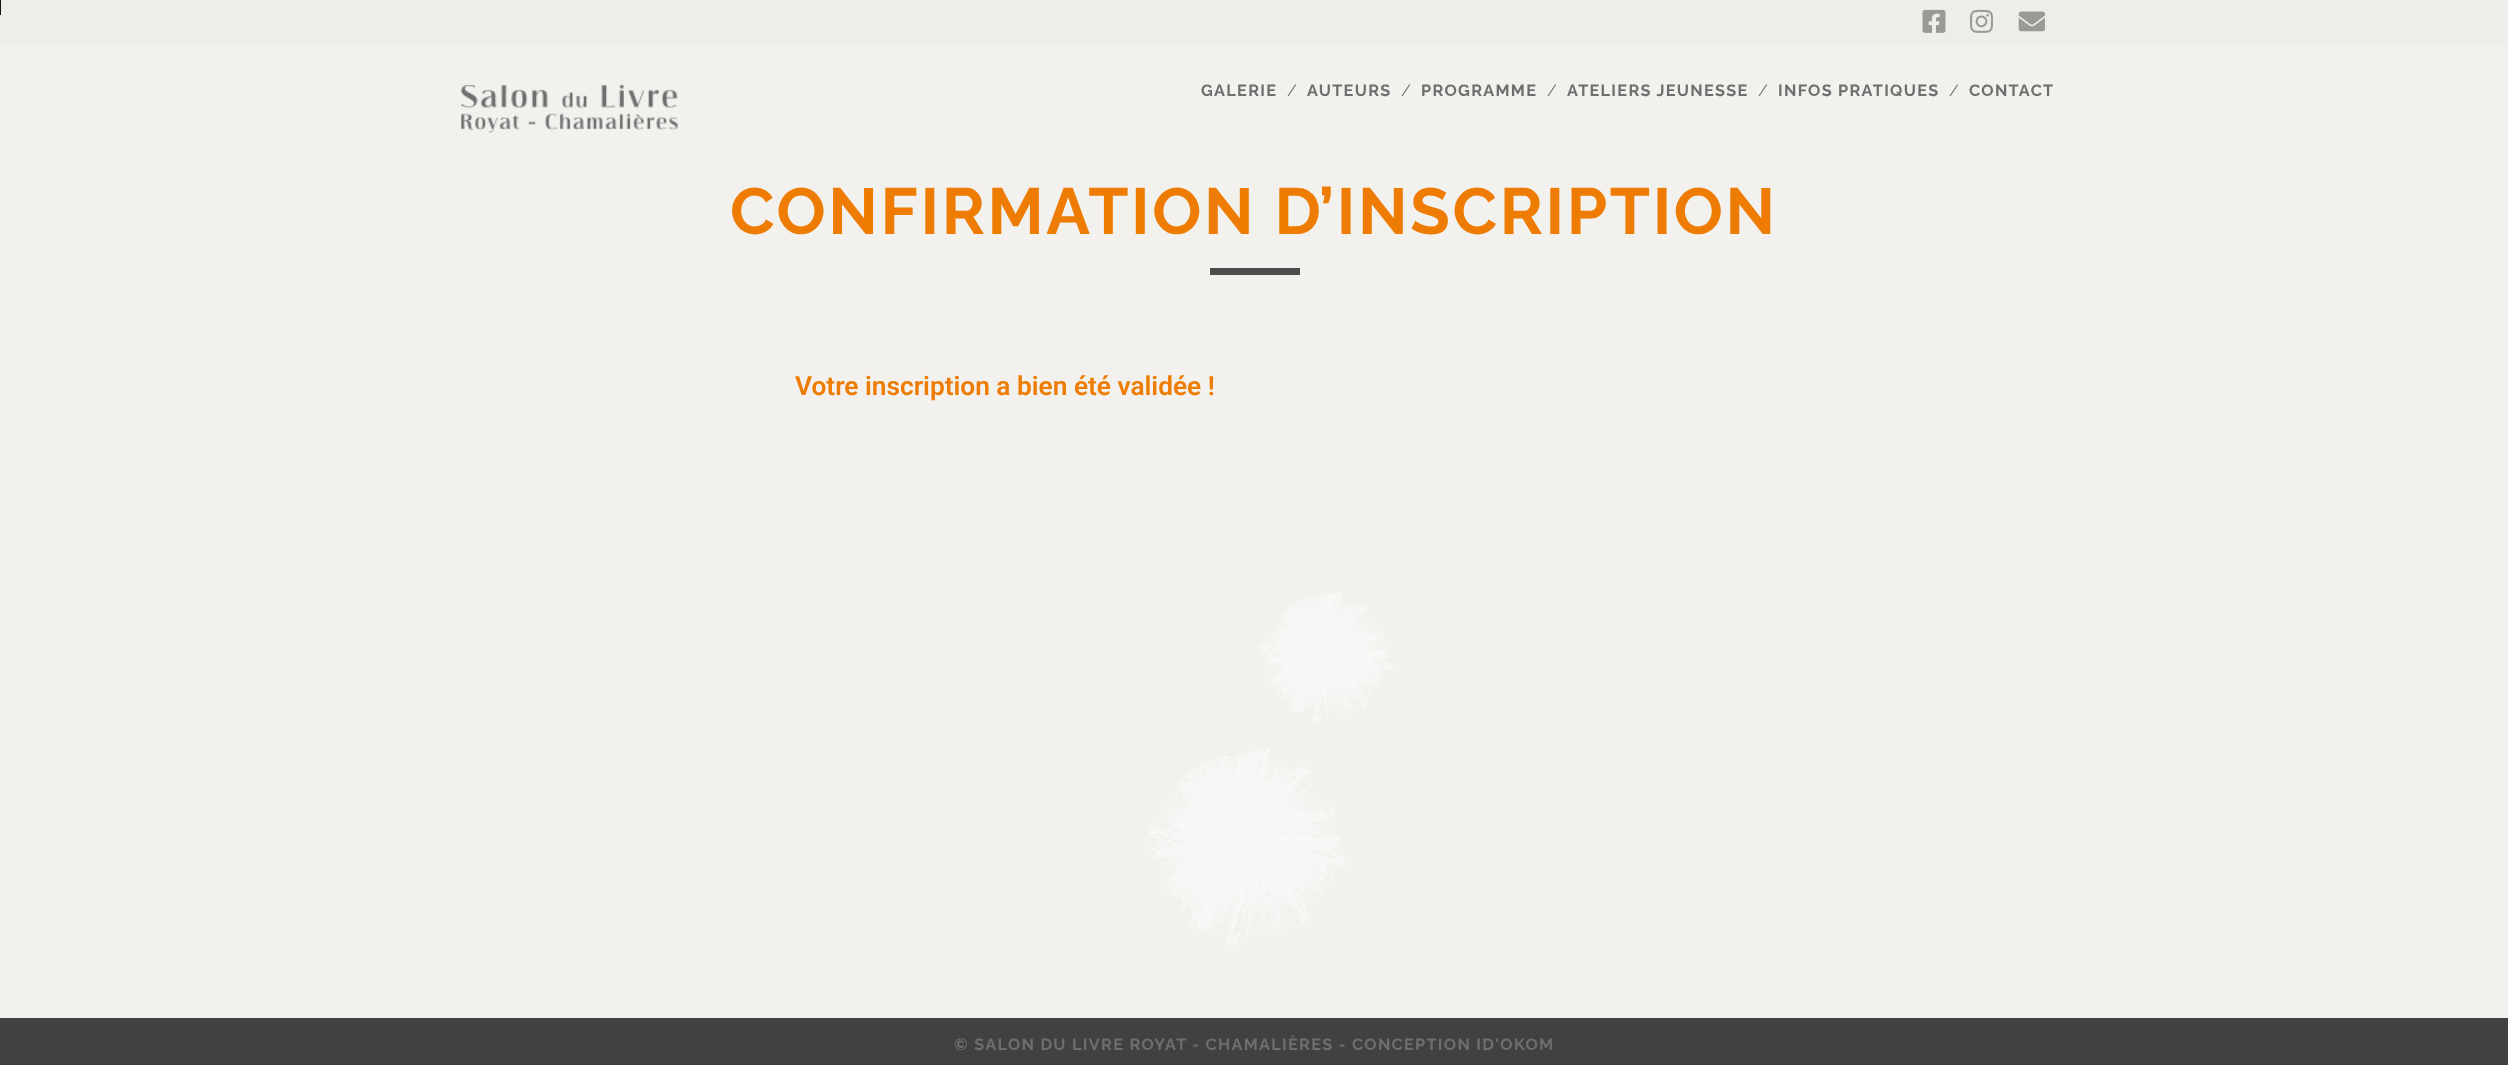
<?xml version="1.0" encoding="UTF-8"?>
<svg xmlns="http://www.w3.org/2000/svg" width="2508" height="1065">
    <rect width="100%" height="100%" fill="#F2F1EE"/>
    <rect x="0" y="0" width="1" height="15" fill="#111111"/>
    <rect x="1" y="0" width="2507" height="45" fill="#EFEDEA"/>
    <image x="1922" y="9" width="24" height="24" href="img_01.png"/>
    <image x="1970" y="9" width="23" height="24" href="img_02.png"/>
    <image x="2018" y="11" width="27" height="21" href="img_03.png"/>
    <image x="461" y="84" width="217" height="49" href="img_04.png"/>
    <text x="1201" y="96" font-family="Raleway" font-size="16.25" font-weight="700" letter-spacing="1.3" fill="#6E6E6E">GALERIE</text>
    <text x="1287" y="96" font-family="Raleway" font-size="16.25" fill="#6E6E6E">/</text>
    <text x="1307" y="96" font-family="Raleway" font-size="16.25" font-weight="700" letter-spacing="1.3" fill="#6E6E6E">AUTEURS</text>
    <text x="1401" y="96" font-family="Raleway" font-size="16.25" fill="#6E6E6E">/</text>
    <text x="1421" y="96" font-family="Raleway" font-size="16.25" font-weight="700" letter-spacing="1.3" fill="#6E6E6E">PROGRAMME</text>
    <text x="1547" y="96" font-family="Raleway" font-size="16.25" fill="#6E6E6E">/</text>
    <text x="1567" y="96" font-family="Raleway" font-size="16.25" font-weight="700" letter-spacing="1.3" fill="#6E6E6E">ATELIERS JEUNESSE</text>
    <text x="1758" y="96" font-family="Raleway" font-size="16.25" fill="#6E6E6E">/</text>
    <text x="1778" y="96" font-family="Raleway" font-size="16.25" font-weight="700" letter-spacing="1.3" fill="#6E6E6E">INFOS PRATIQUES</text>
    <text x="1949" y="96" font-family="Raleway" font-size="16.25" fill="#6E6E6E">/</text>
    <text x="1969" y="96" font-family="Raleway" font-size="16.25" font-weight="700" letter-spacing="1.3" fill="#6E6E6E">CONTACT</text>
    <image x="1142" y="589" width="255" height="363" href="img_05.png"/>
    <text x="730" y="234" font-family="Raleway" font-size="65" font-weight="700" letter-spacing="2.6" fill="#EF7C02">CONFIRMATION D’INSCRIPTION</text>
    <rect x="1210" y="268" width="90" height="7" fill="#4D4D4D"/>
    <text x="795" y="395" font-family="Roboto" font-size="26.25" font-weight="600" fill="#EF7C02">Votre inscription a bien été validée !</text>
    <rect x="0" y="1018" width="2508" height="47" fill="#414141"/>
    <text x="954" y="1050" font-family="Raleway" font-size="16.25" font-weight="700" letter-spacing="1.3" fill="#6E6E6E">© SALON DU LIVRE ROYAT - CHAMALIÈRES - CONCEPTION ID'OKOM</text>
</svg>
